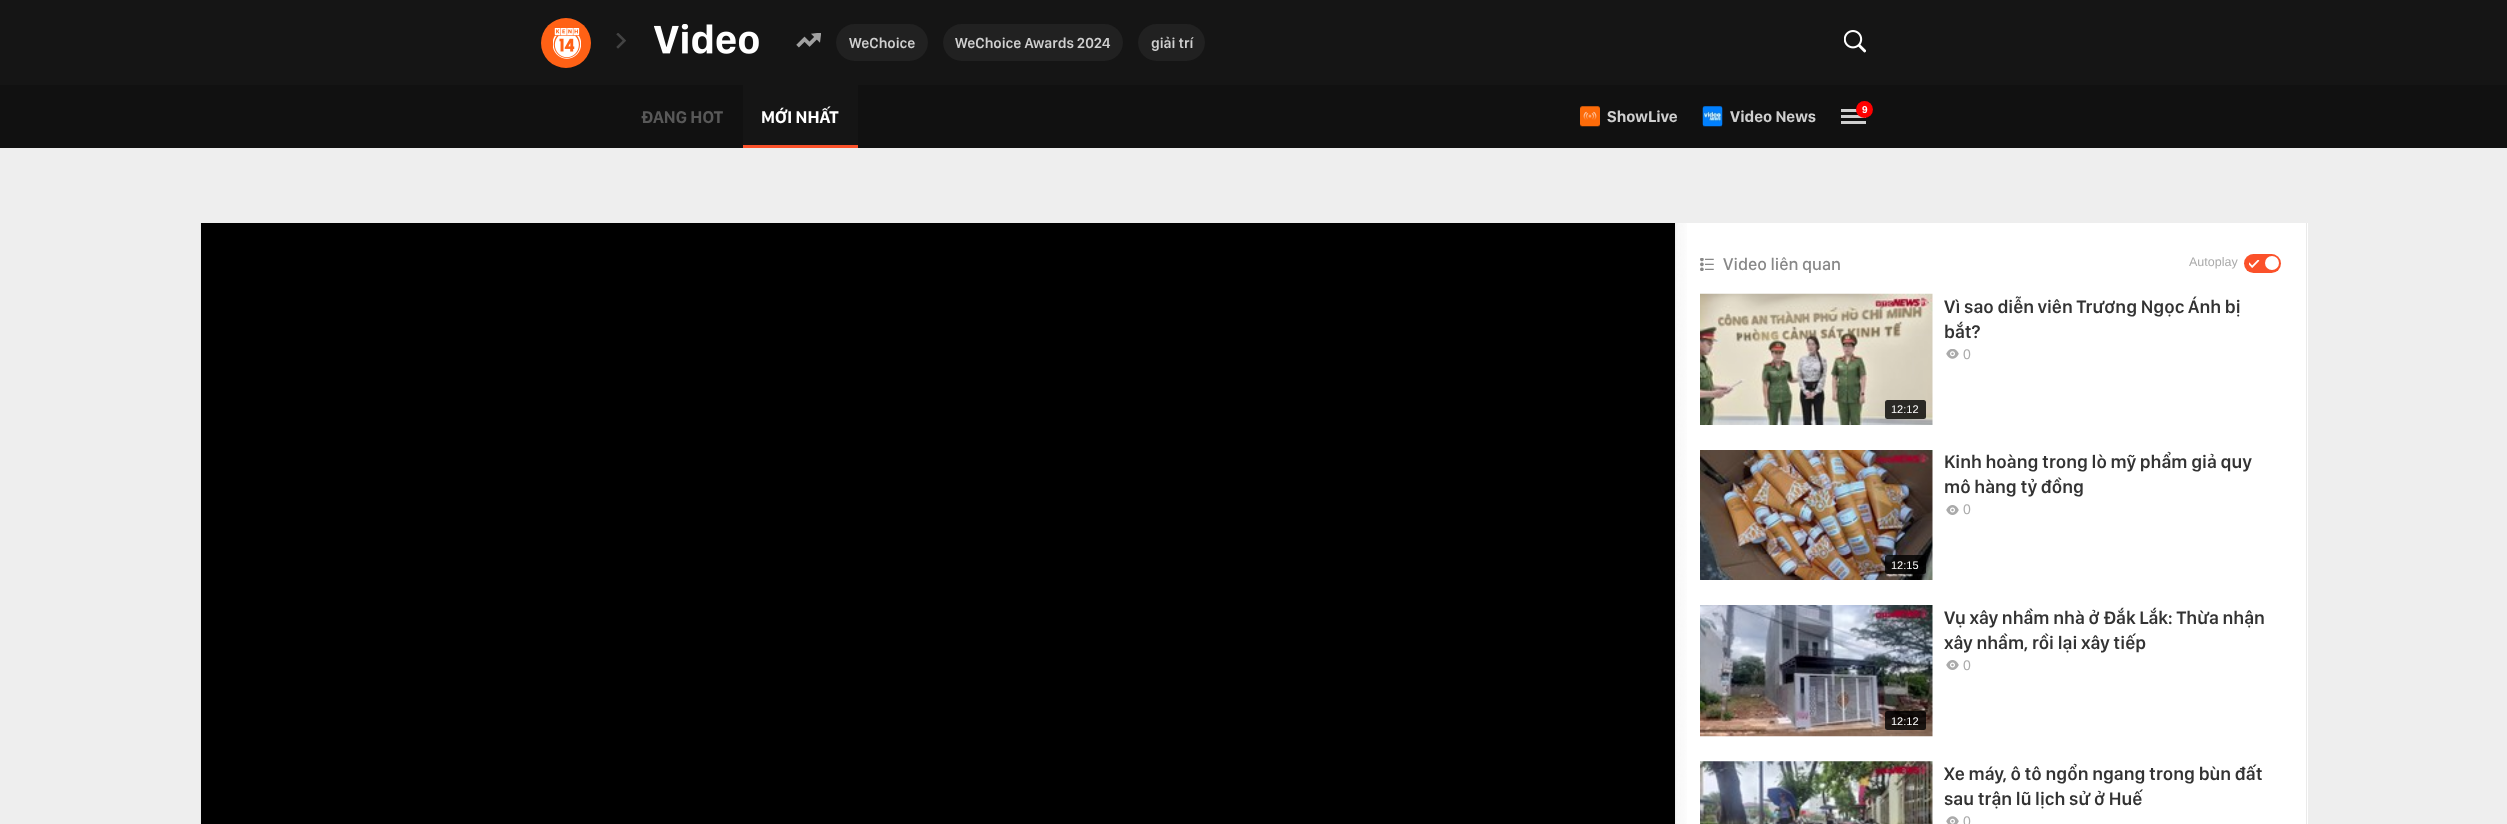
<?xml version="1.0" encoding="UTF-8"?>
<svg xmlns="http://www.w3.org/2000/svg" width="2507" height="824">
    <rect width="100%" height="100%" fill="#EEEEEE"/>
    <rect x="0" y="0" width="2507" height="85" fill="#151515"/>
    <circle cx="566" cy="43" r="25" fill="#FF6115"/>
    <image x="553" y="28" width="28" height="31" href="img_01.png"/>
    <image x="616" y="33" width="10" height="16" href="img_02.png"/>
    <image x="654" y="24" width="105" height="30" href="img_03.png"/>
    <image x="796" y="33" width="25" height="15" href="img_04.png"/>
    <rect x="836" y="24" width="92" height="37" rx="18.5" fill="#212121"/>
    <text x="849" y="48" font-family="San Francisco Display" font-size="15" font-weight="600" fill="#CFCFCF">WeChoice</text>
    <rect x="943" y="24" width="180" height="37" rx="18.5" fill="#212121"/>
    <text x="955" y="48" font-family="San Francisco Display" font-size="15" font-weight="600" fill="#CFCFCF">WeChoice Awards 2024</text>
    <rect x="1138" y="24" width="67" height="37" rx="18.5" fill="#212121"/>
    <text x="1151" y="48" font-family="San Francisco Display" font-size="15" font-weight="600" fill="#CFCFCF">giải trí</text>
    <image x="1844" y="30" width="22" height="23" href="img_05.png"/>
    <rect x="0" y="85" width="2507" height="63" fill="#111111"/>
    <text x="641" y="123" font-family="San Francisco Display" font-size="17.5" font-weight="700" fill="#585858">ĐANG HOT</text>
    <rect x="743" y="85" width="115" height="60" fill="#151515"/>
    <text x="761" y="123" font-family="San Francisco Display" font-size="17.5" font-weight="700" fill="#FFFFFF">MỚI NHẤT</text>
    <rect x="743" y="145" width="115" height="3" fill="#FB512A"/>
    <image x="1580" y="106" width="20" height="21" href="img_06.png"/>
    <text x="1607" y="122" font-family="San Francisco Display" font-size="16.25" font-weight="700" fill="#CFCFCF">ShowLive</text>
    <image x="1702" y="106" width="21" height="21" href="img_07.png"/>
    <text x="1730" y="122" font-family="San Francisco Display" font-size="16.25" font-weight="700" fill="#CFCFCF">Video News</text>
    <rect x="1841" y="109" width="16" height="3" fill="#CFCFCF"/>
    <rect x="1841" y="115" width="25" height="3" fill="#CFCFCF"/>
    <circle cx="1864.5" cy="109.5" r="8.5" fill="#FF0000"/>
    <text x="1862" y="113" font-family="Liberation Sans" font-size="10" font-weight="700" fill="#FFFFFF">9</text>
    <rect x="1841" y="121" width="25" height="3" fill="#CFCFCF"/>
    <rect x="1676" y="223" width="632" height="601" fill="#FFFFFF"/>
    <rect x="2306" y="223" width="1" height="601" fill="#EAEAEA"/>
    <rect x="200" y="223" width="1" height="601" fill="#EAEAEA"/>
    <rect x="201" y="223" width="1474" height="601" fill="#000000"/>
    <image x="1675" y="223" width="12" height="601" href="img_08.png"/>
    <image x="1700" y="258" width="14" height="13" href="img_09.png"/>
    <text x="1723" y="270" font-family="San Francisco Display" font-size="17.5" font-weight="500" fill="#888888">Video liên quan</text>
    <text x="2189" y="266" font-family="Liberation Sans" font-size="12.5" fill="#AAAAAA">Autoplay</text>
    <rect x="2244" y="254" width="37" height="19" rx="9.5" fill="#FB512A"/>
    <image x="2249" y="260" width="11" height="8" href="img_10.png"/>
    <circle cx="2272" cy="263" r="7" fill="#FFFFFF"/>
    <text font-family="San Francisco Display" font-size="18.75" font-weight="600" fill="#333333">
        <tspan x="1944" y="313">Vì sao diễn viên Trương Ngọc Ánh bị</tspan>
        <tspan x="1944" y="338">bắt?</tspan>
    </text>
    <image x="1946" y="349" width="13" height="10" href="img_11.png"/>
    <text x="1963" y="359" font-family="Liberation Sans" font-size="14" fill="#AAAAAA">0</text>
    <image x="1700" y="293" width="233" height="132" href="img_12.png"/>
    <rect x="1885" y="400" width="41" height="19" rx="2.5" fill="#000000" fill-opacity="0.8"/>
    <text x="1891" y="413" font-family="Liberation Sans" font-size="11" fill="#FFFFFF">12:12</text>
    <text font-family="San Francisco Display" font-size="18.75" font-weight="600" fill="#333333">
        <tspan x="1944" y="468">Kinh hoàng trong lò mỹ phẩm giả quy</tspan>
        <tspan x="1944" y="493">mô hàng tỷ đồng</tspan>
    </text>
    <image x="1946" y="505" width="13" height="10" href="img_13.png"/>
    <text x="1963" y="514" font-family="Liberation Sans" font-size="14" fill="#AAAAAA">0</text>
    <image x="1700" y="450" width="233" height="130" href="img_14.png"/>
    <rect x="1885" y="555" width="41" height="19" rx="2.5" fill="#000000" fill-opacity="0.8"/>
    <text x="1891" y="569" font-family="Liberation Sans" font-size="11" fill="#FFFFFF">12:15</text>
    <text font-family="San Francisco Display" font-size="18.75" font-weight="600" fill="#333333">
        <tspan x="1944" y="624">Vụ xây nhầm nhà ở Đắk Lắk: Thừa nhận</tspan>
        <tspan x="1944" y="649">xây nhầm, rồi lại xây tiếp</tspan>
    </text>
    <image x="1946" y="660" width="13" height="10" href="img_13.png"/>
    <text x="1963" y="670" font-family="Liberation Sans" font-size="14" fill="#AAAAAA">0</text>
    <image x="1700" y="605" width="233" height="132" href="img_15.png"/>
    <rect x="1885" y="711" width="41" height="19" rx="2.5" fill="#000000" fill-opacity="0.8"/>
    <text x="1891" y="725" font-family="Liberation Sans" font-size="11" fill="#FFFFFF">12:12</text>
    <image x="1700" y="761" width="233" height="63" href="img_16.png"/>
    <text font-family="San Francisco Display" font-size="18.75" font-weight="600" fill="#333333">
        <tspan x="1944" y="780">Xe máy, ô tô ngổn ngang trong bùn đất</tspan>
        <tspan x="1944" y="805">sau trận lũ lịch sử ở Huế</tspan>
    </text>
    <image x="1946" y="816" width="13" height="8" href="img_17.png"/>
    <text x="1963" y="826" font-family="Liberation Sans" font-size="14" fill="#AAAAAA">0</text>
</svg>
